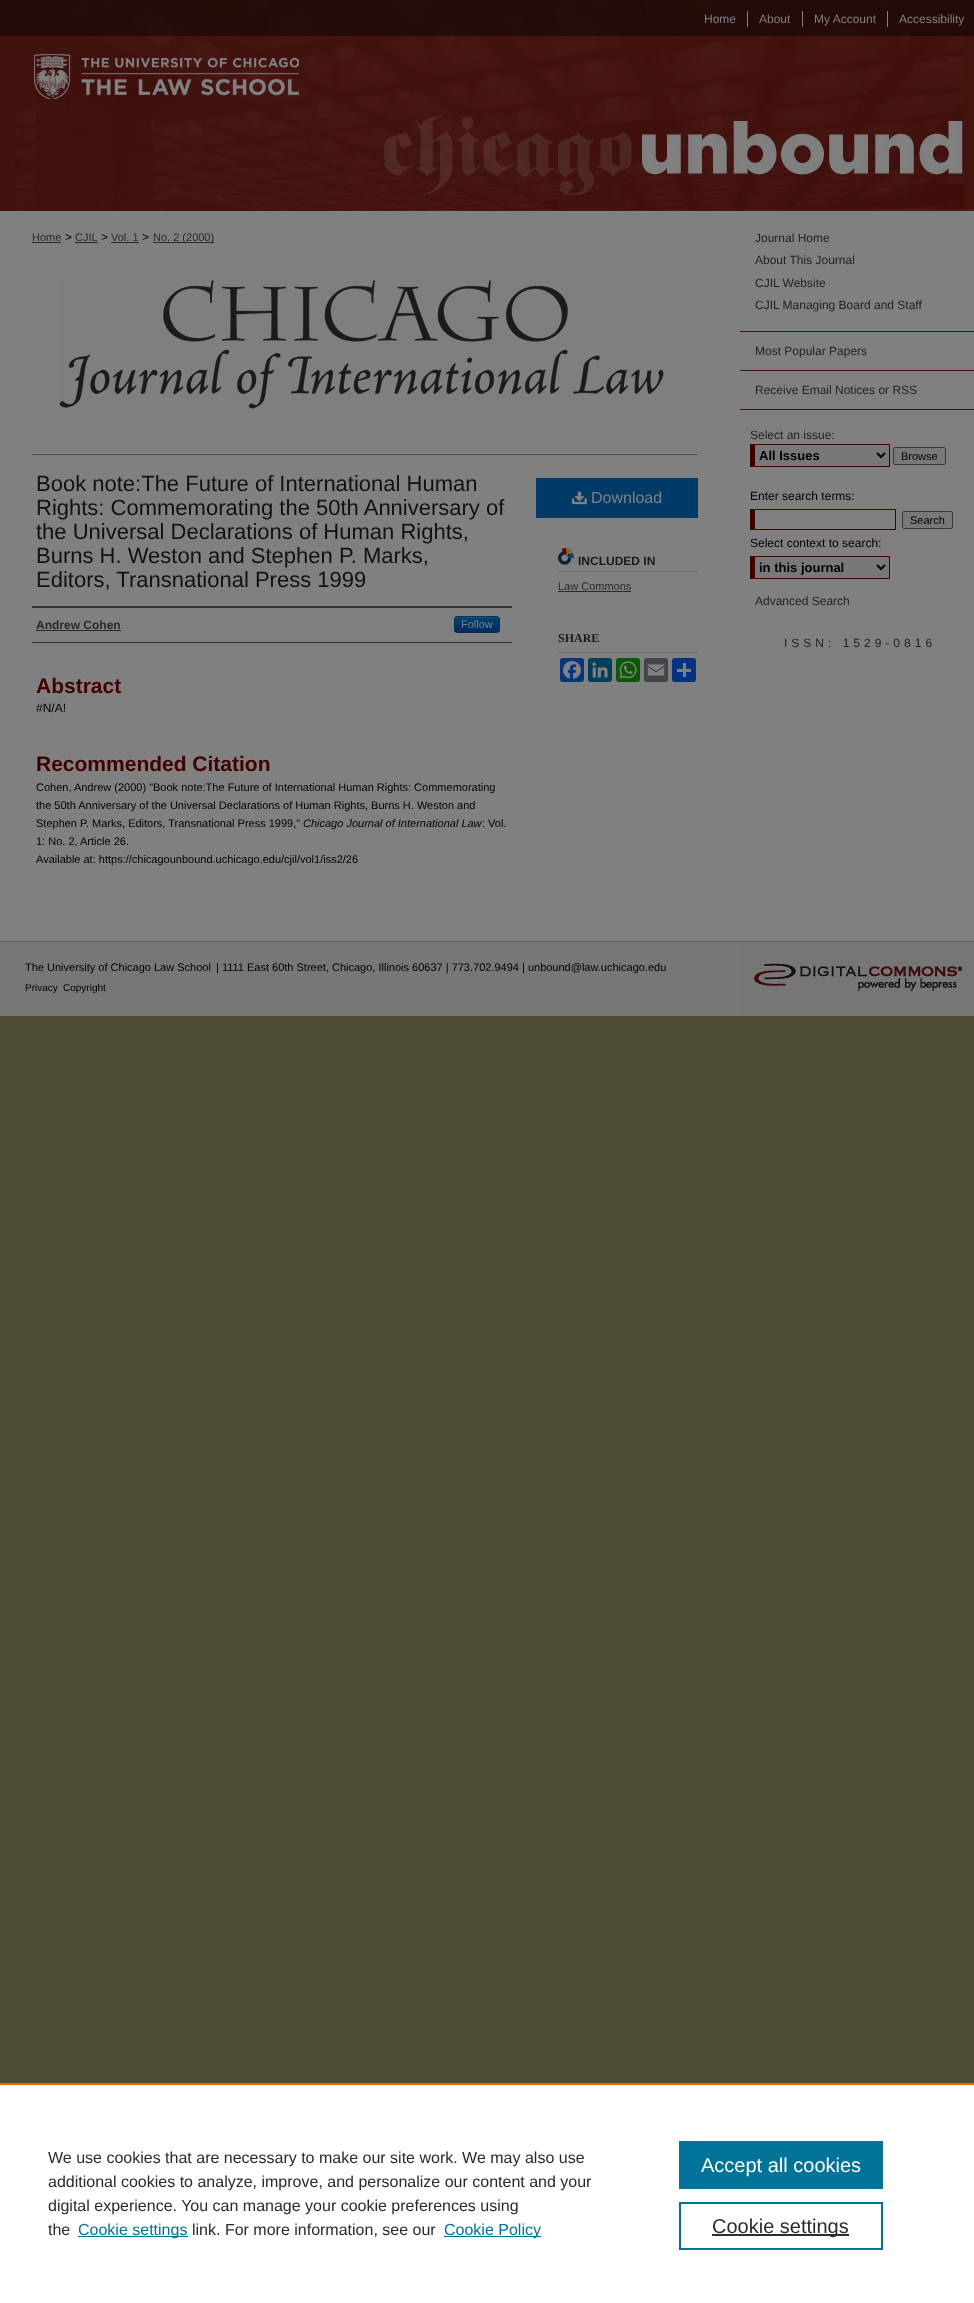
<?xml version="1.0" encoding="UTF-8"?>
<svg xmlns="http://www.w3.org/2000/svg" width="974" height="2303">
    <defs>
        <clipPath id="clip1"><rect x="454" y="616" width="46" height="17" rx="4"/></clipPath>
        <linearGradient id="g1" gradientUnits="userSpaceOnUse" x1="477" y1="617" x2="477" y2="632"><stop offset="0" stop-color="#004466"/><stop offset="1" stop-color="#002B66"/></linearGradient>
    </defs>
    <rect width="100%" height="100%" fill="#4D4D33"/>
    <rect x="0" y="36" width="15" height="175" fill="#42120E"/>
    <rect x="0" y="0" width="974" height="36" fill="#230907"/>
    <image x="15" y="0" width="898" height="36" href="img_01.png"/>
    <rect x="747" y="11" width="1" height="16" fill="#808080"/>
    <text x="704" y="23" font-family="Liberation Sans" font-size="12" fill="#808080">Home</text>
    <rect x="802" y="11" width="1" height="16" fill="#808080"/>
    <text x="759" y="23" font-family="Liberation Sans" font-size="12" fill="#808080">About</text>
    <rect x="840" y="23" width="21" height="4" fill="#240A08"/>
    <rect x="887" y="11" width="1" height="16" fill="#808080"/>
    <text x="814" y="23" font-family="Liberation Sans" font-size="12" fill="#808080">My Account</text>
    <text x="899" y="23" font-family="Liberation Sans" font-size="12" fill="#808080">Accessibility</text>
    <image x="15" y="36" width="315" height="175" href="img_02.png"/>
    <image x="330" y="36" width="644" height="175" href="img_03.png"/>
    <rect x="0" y="211" width="974" height="730" fill="#808080"/>
    <text x="32" y="241" font-family="Liberation Sans" font-size="11" fill="#2A2A2A">Home</text>
    <rect x="32" y="242" width="29" height="1" fill="#2A2A2A"/>
    <text x="65" y="241" font-family="Liberation Sans" font-size="12" fill="#000000">&gt;</text>
    <text x="75" y="241" font-family="Liberation Sans" font-size="11" fill="#2A2A2A">CJIL</text>
    <rect x="75" y="242" width="23" height="1" fill="#2A2A2A"/>
    <text x="101" y="241" font-family="Liberation Sans" font-size="12" fill="#000000">&gt;</text>
    <text x="111" y="241" font-family="Liberation Sans" font-size="11" fill="#2A2A2A">Vol. 1</text>
    <rect x="111" y="242" width="28" height="1" fill="#2A2A2A"/>
    <text x="142" y="241" font-family="Liberation Sans" font-size="12" fill="#000000">&gt;</text>
    <rect x="153" y="242" width="61" height="1" fill="#2A2A2A"/>
    <text x="153" y="241" font-family="Liberation Sans" font-size="11" fill="#2A2A2A">No. 2 (2000)</text>
    <image x="59" y="276" width="605" height="133" href="img_04.png"/>
    <rect x="32" y="454" width="666" height="1" fill="#555555"/>
    <text font-family="Liberation Sans" font-size="22" fill="#111111">
        <tspan x="36" y="491">Book note:The Future of International Human</tspan>
        <tspan x="36" y="515">Rights: Commemorating the 50th Anniversary of</tspan>
        <tspan x="36" y="539">the Universal Declarations of Human Rights,</tspan>
        <tspan x="36" y="563">Burns H. Weston and Stephen P. Marks,</tspan>
        <tspan x="36" y="587">Editors, Transnational Press 1999</tspan>
    </text>
    <rect x="32" y="606" width="480" height="2" fill="#333333"/>
    <rect x="32" y="642" width="480" height="1" fill="#333333"/>
    <text x="36" y="629" font-family="Liberation Sans" font-size="12" font-weight="700" fill="#2A2A2A">Andrew Cohen</text>
    <rect x="36" y="630" width="85" height="1" fill="#2A2A2A"/>
    <rect x="454" y="616" width="46" height="17" rx="4" fill="#003A66"/>
    <g clip-path="url(#clip1)">
        <rect x="454" y="617" width="46" height="15" fill="url(#g1)"/>
    </g>
    <path d="M 458 618 H 491 C 498 618 499 618 499 624 V 630 V 623 C 499 616 497 617 490 617 H 464 C 457 617 455 616 455 623 V 631 C 455 628 453 618 458 618 Z" fill="#808080" fill-opacity="0.2"/>
    <path d="M 498.5 631.5 C 498 632 497 632.5 496 632.5 H 458 C 457 632.5 456 632 455.5 631.5" fill="none" stroke="#000000" stroke-opacity="0.25"/>
    <path d="M 455.5 631.5 C 454 629.5 454.5 626.5 454.5 624.5 C 454.5 615.5 455 616.5 464.5 616.5 H 489.5 C 499 616.5 499.5 615.5 499.5 624.5 C 499.5 626.5 500 629.5 498.5 631.5" fill="none" stroke="#000000" stroke-opacity="0.1"/>
    <text x="461" y="628" font-family="Liberation Sans" font-size="11" fill="#808080">Follow</text>
    <text x="36" y="693" font-family="Liberation Sans" font-size="21" font-weight="700" fill="#400000">Abstract</text>
    <text x="36" y="712" font-family="Liberation Sans" font-size="12" fill="#000000">#N/A!</text>
    <text x="36" y="771" font-family="Liberation Sans" font-size="21" font-weight="700" fill="#400000">Recommended Citation</text>
    <text font-family="Liberation Sans" font-size="11" fill="#000000">
        <tspan x="36" y="791">Cohen, Andrew (2000) "Book note:The Future of International Human Rights: Commemorating</tspan>
        <tspan x="36" y="809">the 50th Anniversary of the Universal Declarations of Human Rights, Burns H. Weston and</tspan>
        <tspan x="36" y="827">Stephen P. Marks, Editors, Transnational Press 1999,"</tspan>
    </text>
    <text x="303" y="827" font-family="Liberation Sans" font-size="11" font-style="italic" fill="#000000">Chicago Journal of International Law</text>
    <text x="482" y="827" font-family="Liberation Sans" font-size="11" fill="#000000">: Vol.</text>
    <text font-family="Liberation Sans" font-size="11" fill="#000000">
        <tspan x="36" y="845">1: No. 2, Article 26.</tspan>
        <tspan x="36" y="863">Available at: https://chicagounbound.uchicago.edu/cjil/vol1/iss2/26</tspan>
    </text>
    <rect x="536" y="478" width="162" height="40" fill="#003A66"/>
    <image x="572" y="491" width="15" height="14" href="img_05.png"/>
    <text x="591" y="503" font-family="Liberation Sans" font-size="16" fill="#808080">Download</text>
    <image x="558" y="548" width="16" height="17" href="img_06.png"/>
    <rect x="558" y="571" width="140" height="1" fill="#6F6F6F"/>
    <text x="578" y="565" font-family="Liberation Sans" font-size="12" font-weight="700" fill="#1A1A1A">INCLUDED IN</text>
    <text x="558" y="590" font-family="Liberation Sans" font-size="11" fill="#2A2A2A">Law Commons</text>
    <rect x="558" y="591" width="73" height="1" fill="#2A2A2A"/>
    <rect x="558" y="652" width="140" height="1" fill="#6F6F6F"/>
    <text x="558" y="642" font-family="Liberation Serif" font-size="12" font-weight="700" fill="#1A1A1A">SHARE</text>
    <rect x="560" y="658" width="24" height="24" rx="3" fill="#043380"/>
    <image x="563" y="661" width="18" height="18" href="img_07.png"/>
    <rect x="588" y="658" width="24" height="24" rx="3" fill="#003E5B"/>
    <image x="592" y="662" width="16" height="16" href="img_08.png"/>
    <rect x="616" y="658" width="24" height="24" rx="3" fill="#095805"/>
    <image x="619" y="661" width="18" height="18" href="img_09.png"/>
    <rect x="644" y="658" width="24" height="24" rx="3" fill="#444548"/>
    <image x="647" y="664" width="18" height="12" href="img_10.png"/>
    <rect x="672" y="658" width="24" height="24" rx="3" fill="#013380"/>
    <rect x="683" y="663" width="3" height="14" fill="#808080"/>
    <rect x="677" y="669" width="14" height="3" fill="#808080"/>
    <text font-family="Liberation Sans" font-size="12" fill="#222222">
        <tspan x="755" y="242">Journal Home</tspan>
        <tspan x="755" y="264">About This Journal</tspan>
        <tspan x="755" y="287">CJIL Website</tspan>
        <tspan x="755" y="309">CJIL Managing Board and Staff</tspan>
    </text>
    <rect x="740" y="331" width="234" height="1" fill="#42120E"/>
    <rect x="740" y="370" width="234" height="1" fill="#42120E"/>
    <text x="755" y="355" font-family="Liberation Sans" font-size="12" fill="#222222">Most Popular Papers</text>
    <rect x="740" y="409" width="234" height="1" fill="#42120E"/>
    <text x="755" y="394" font-family="Liberation Sans" font-size="12" fill="#222222">Receive Email Notices or RSS</text>
    <text x="750" y="439" font-family="Liberation Sans" font-size="12" fill="#222222">Select an issue:</text>
    <rect x="755" y="445" width="134" height="21" fill="#787878"/>
    <rect x="750" y="444" width="140" height="1" fill="#400000"/>
    <rect x="889" y="444" width="1" height="23" fill="#400000"/>
    <rect x="750" y="466" width="140" height="1" fill="#400000"/>
    <rect x="750" y="444" width="5" height="23" fill="#400000"/>
    <path d="M 877 453 L 881 457 L 885 453" fill="none" stroke="#000000" stroke-width="2"/>
    <text x="759" y="460" font-family="Liberation Sans" font-size="13" font-weight="700" fill="#000000">All Issues</text>
    <rect x="893.5" y="447.5" width="52" height="17" rx="1.5" fill="#787878" stroke="#3B3B3B"/>
    <text x="901" y="460" font-family="Liberation Sans" font-size="11" fill="#000000">Browse</text>
    <text x="750" y="500" font-family="Liberation Sans" font-size="12" fill="#000000">Enter search terms:</text>
    <rect x="750" y="509" width="146" height="1" fill="#400000"/>
    <rect x="895" y="509" width="1" height="21" fill="#400000"/>
    <rect x="750" y="529" width="146" height="1" fill="#400000"/>
    <rect x="750" y="509" width="5" height="21" fill="#400000"/>
    <rect x="902.5" y="511.5" width="50" height="17" rx="1.5" fill="#787878" stroke="#3B3B3B"/>
    <text x="910" y="524" font-family="Liberation Sans" font-size="11" fill="#000000">Search</text>
    <text x="750" y="547" font-family="Liberation Sans" font-size="12" fill="#000000">Select context to search:</text>
    <rect x="755" y="557" width="134" height="21" fill="#787878"/>
    <rect x="750" y="556" width="140" height="1" fill="#400000"/>
    <rect x="889" y="556" width="1" height="23" fill="#400000"/>
    <rect x="750" y="578" width="140" height="1" fill="#400000"/>
    <rect x="750" y="556" width="5" height="23" fill="#400000"/>
    <path d="M 877 565 L 881 569 L 885 565" fill="none" stroke="#000000" stroke-width="2"/>
    <text x="759" y="572" font-family="Liberation Sans" font-size="13" font-weight="700" fill="#000000">in this journal</text>
    <text x="755" y="605" font-family="Liberation Sans" font-size="12" fill="#222222">Advanced Search</text>
    <text x="784" y="647" font-family="Liberation Sans" font-size="12" letter-spacing="4" fill="#222222">ISSN: 1529-0816</text>
    <rect x="0" y="942" width="974" height="74" fill="#777777"/>
    <rect x="0" y="941" width="974" height="1" fill="#626262"/>
    <text x="25" y="971" font-family="Liberation Sans" font-size="11" fill="#000000">The University of Chicago Law School</text>
    <text x="216" y="971" font-family="Liberation Sans" font-size="11" fill="#000000">| 1111 East 60th Street, Chicago, Illinois 60637 | 773.702.9494 | unbound@law.uchicago.edu</text>
    <text x="25" y="991" font-family="Liberation Sans" font-size="10" fill="#000000">Privacy</text>
    <text x="63" y="991" font-family="Liberation Sans" font-size="10" fill="#000000">Copyright</text>
    <image x="740" y="942" width="234" height="73" href="img_11.png"/>
    <rect x="0" y="2085" width="974" height="218" fill="#FFFFFF"/>
    <rect x="0" y="2083" width="974" height="2" fill="#EB6500"/>
    <text font-family="Liberation Sans" font-size="16" fill="#2A2A2A">
        <tspan x="48" y="2163">We use cookies that are necessary to make our site work. We may also use</tspan>
        <tspan x="48" y="2187">additional cookies to analyze, improve, and personalize our content and your</tspan>
        <tspan x="48" y="2211">digital experience. You can manage your cookie preferences using</tspan>
        <tspan x="48" y="2235">the</tspan>
    </text>
    <rect x="78" y="2236" width="110" height="1" fill="#007398"/>
    <text x="78" y="2235" font-family="Liberation Sans" font-size="16" fill="#007398">Cookie settings</text>
    <text x="192" y="2235" font-family="Liberation Sans" font-size="16" fill="#2A2A2A">link. For more information, see our</text>
    <rect x="444" y="2236" width="97" height="1" fill="#007398"/>
    <text x="444" y="2235" font-family="Liberation Sans" font-size="16" fill="#007398">Cookie Policy</text>
    <rect x="679" y="2141" width="204" height="48" fill="#007398"/>
    <text x="701" y="2172" font-family="Liberation Sans" font-size="20" fill="#FFFFFF">Accept all cookies</text>
    <rect x="680" y="2203" width="202" height="46" fill="none" stroke="#007398" stroke-width="2"/>
    <rect x="712" y="2234" width="137" height="2" fill="#2E2E2E"/>
    <text x="712" y="2233" font-family="Liberation Sans" font-size="20" fill="#2A2A2A">Cookie settings</text>
</svg>
